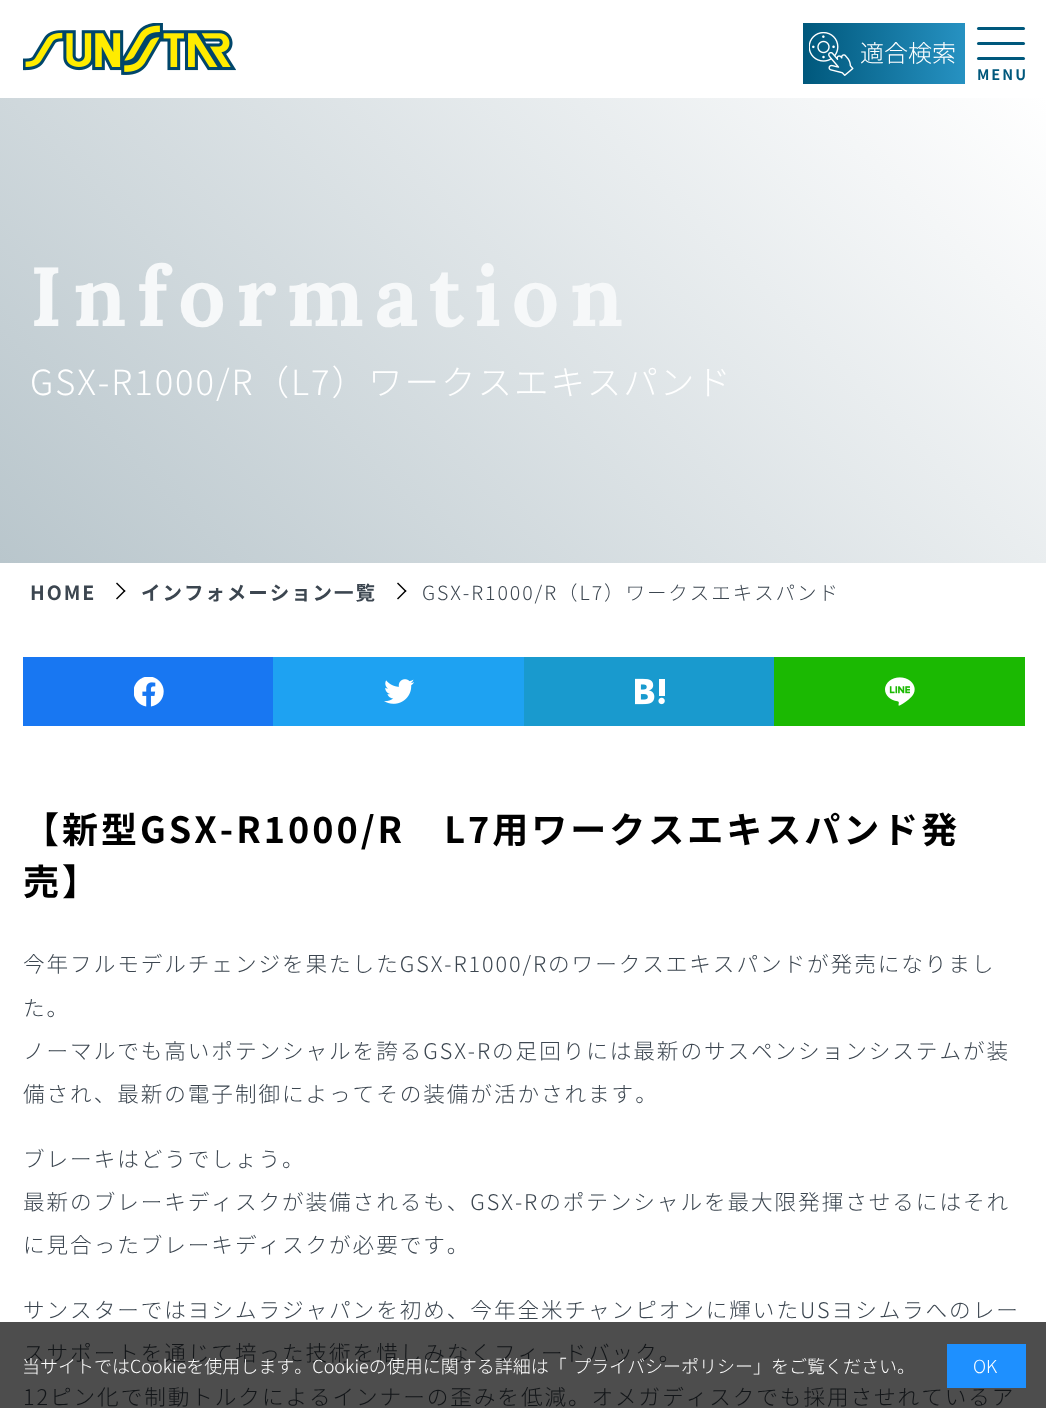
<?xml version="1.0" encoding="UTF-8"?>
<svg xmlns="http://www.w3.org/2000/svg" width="1046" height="1408">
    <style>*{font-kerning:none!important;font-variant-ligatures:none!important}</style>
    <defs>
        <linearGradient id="g1" gradientUnits="userSpaceOnUse" x1="804" y1="53" x2="963" y2="53"><stop offset="0" stop-color="#00587C"/><stop offset="1" stop-color="#2691C1"/></linearGradient>
        <linearGradient id="g2" gradientUnits="userSpaceOnUse" x1="146" y1="708" x2="902" y2="-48"><stop offset="0" stop-color="#B9C6CC"/><stop offset="1" stop-color="#FFFFFF"/></linearGradient>
    </defs>
    <rect width="100%" height="100%" fill="#FFFFFF"/>
    <rect x="0" y="1322" width="1046" height="86" fill="#4D4D4D"/>
    <image x="23" y="23" width="213" height="52" href="img_01.png"/>
    <rect x="805" y="23" width="158" height="61" fill="url(#g1)"/>
    <rect x="963" y="23" width="2" height="61" fill="#2691C1"/>
    <rect x="803" y="23" width="2" height="61" fill="#00587C"/>
    <image x="809" y="32" width="45" height="44" href="img_02.png"/>
    <text x="860" y="62" font-family="Noto Sans JP" font-size="24" font-weight="300" fill="#FFFFFF">適合検索</text>
    <rect x="977" y="27" width="48" height="3" rx="1.5" fill="#00587C"/>
    <rect x="977" y="42" width="48" height="3" rx="1.5" fill="#00587C"/>
    <rect x="977" y="57" width="48" height="3" rx="1.5" fill="#00587C"/>
    <text x="977" y="80" font-family="Noto Sans JP" font-size="14.5" font-weight="700" letter-spacing="2" fill="#00587C">MENU</text>
    <rect x="0" y="98" width="1046" height="465" fill="url(#g2)"/>
    <text x="30" y="326" font-family="Lora" font-size="83.75" font-weight="700" letter-spacing="10.5" fill="#F6F8F9">Information</text>
    <text x="30" y="395" font-family="Noto Sans JP" font-size="34.55" font-weight="300" letter-spacing="1.95" fill="#FFFFFF">GSX-R1000/R（L7）ワークスエキスパンド</text>
    <text x="30" y="600" font-family="Noto Sans JP" font-size="19.5" font-weight="700" letter-spacing="1.95" fill="#3C4650">HOME</text>
    <path d="M 117 582.5 L 125.5 591 L 124.5 592 L 116 583.5 Z" fill="#000000"/>
    <path d="M 124.5 590 L 125.5 591 L 117 599.5 L 116 598.5 Z" fill="#000000"/>
    <text x="141" y="600" font-family="Noto Sans JP" font-size="19.5" font-weight="700" letter-spacing="1.95" fill="#3C4650">インフォメーション一覧</text>
    <path d="M 398 582.5 L 406.5 591 L 405.5 592 L 397 583.5 Z" fill="#000000"/>
    <path d="M 405.5 590 L 406.5 591 L 398 599.5 L 397 598.5 Z" fill="#000000"/>
    <text x="422" y="600" font-family="Noto Sans JP" font-size="19.5" font-weight="300" letter-spacing="1.95" fill="#3C4650">GSX-R1000/R（L7）ワークスエキスパンド</text>
    <rect x="23" y="657" width="250" height="69" fill="#1877F2"/>
    <image x="134" y="677" width="30" height="30" href="img_03.png"/>
    <rect x="273" y="657" width="251" height="69" fill="#1EA2F2"/>
    <image x="384" y="679" width="30" height="25" href="img_04.png"/>
    <rect x="524" y="657" width="250" height="69" fill="#199ACE"/>
    <image x="635" y="678" width="30" height="27" href="img_05.png"/>
    <rect x="774" y="657" width="251" height="69" fill="#1BB902"/>
    <image x="885" y="677" width="30" height="29" href="img_06.png"/>
    <text font-family="Noto Sans JP" font-size="36" font-weight="700" letter-spacing="3" fill="#000000">
        <tspan x="23" y="843">【新型GSX-R1000/R　L7用ワークスエキスパンド発</tspan>
        <tspan x="23" y="895">売】</tspan>
    </text>
    <text x="23" y="972" font-family="Noto Sans JP" font-size="21.6" font-weight="300" letter-spacing="1.95" fill="#3C4650">今年フルモデルチェンジを果たしたGSX-R1000/Rのワークスエキスパンドが発売になりまし</text>
    <text font-family="Noto Sans JP" font-size="21.6" font-weight="300" letter-spacing="1.95" fill="#3C4650">
        <tspan x="23" y="1016">た。</tspan>
        <tspan x="23" y="1059">ノーマルでも高いポテンシャルを誇るGSX-Rの足回りには最新のサスペンションシステムが装</tspan>
        <tspan x="23" y="1102">備され、最新の電子制御によってその装備が活かされます。</tspan>
    </text>
    <text font-family="Noto Sans JP" font-size="21.6" font-weight="300" letter-spacing="1.95" fill="#3C4650">
        <tspan x="23" y="1167">ブレーキはどうでしょう。</tspan>
        <tspan x="23" y="1210">最新のブレーキディスクが装備されるも、GSX-Rのポテンシャルを最大限発揮させるにはそれ</tspan>
        <tspan x="23" y="1253">に見合ったブレーキディスクが必要です。</tspan>
    </text>
    <text x="23" y="1318" font-family="Noto Sans JP" font-size="21.6" font-weight="300" letter-spacing="1.95" fill="#3C4650">サンスターではヨシムラジャパンを初め、今年全米チャンピオンに輝いたUSヨシム</text>
    <text x="902" y="1318" font-family="Noto Sans JP" font-size="21.6" font-weight="300" letter-spacing="1.95" fill="#3C4650">ラへのレー</text>
    <text x="23" y="1361" font-family="Noto Sans JP" font-size="21.6" font-weight="300" letter-spacing="1.95" fill="#121518">スサポートを通じて培った技術を惜しみなくフィードバック。</text>
    <text x="23" y="1405" font-family="Noto Sans JP" font-size="21.6" font-weight="300" letter-spacing="1.95" fill="#121518">12ピン化で制動トルクによるインナーの歪みを低減。オメガディスクでも採用させれているア</text>
    <text x="22" y="1373" font-family="Noto Sans JP" font-size="18" font-weight="300" fill="#FFFFFF">当サイトではCookieを使用します。Cookieの使用に関する詳細は「</text>
    <text x="573" y="1373" font-family="Noto Sans JP" font-size="18" font-weight="300" fill="#FFFFFF">プライバシーポリシー」をご覧ください。</text>
    <rect x="947" y="1344" width="79" height="44" fill="#1E90FF"/>
    <text x="973" y="1373" font-family="Noto Sans JP" font-size="18" font-weight="300" fill="#FFFFFF">OK</text>
</svg>
